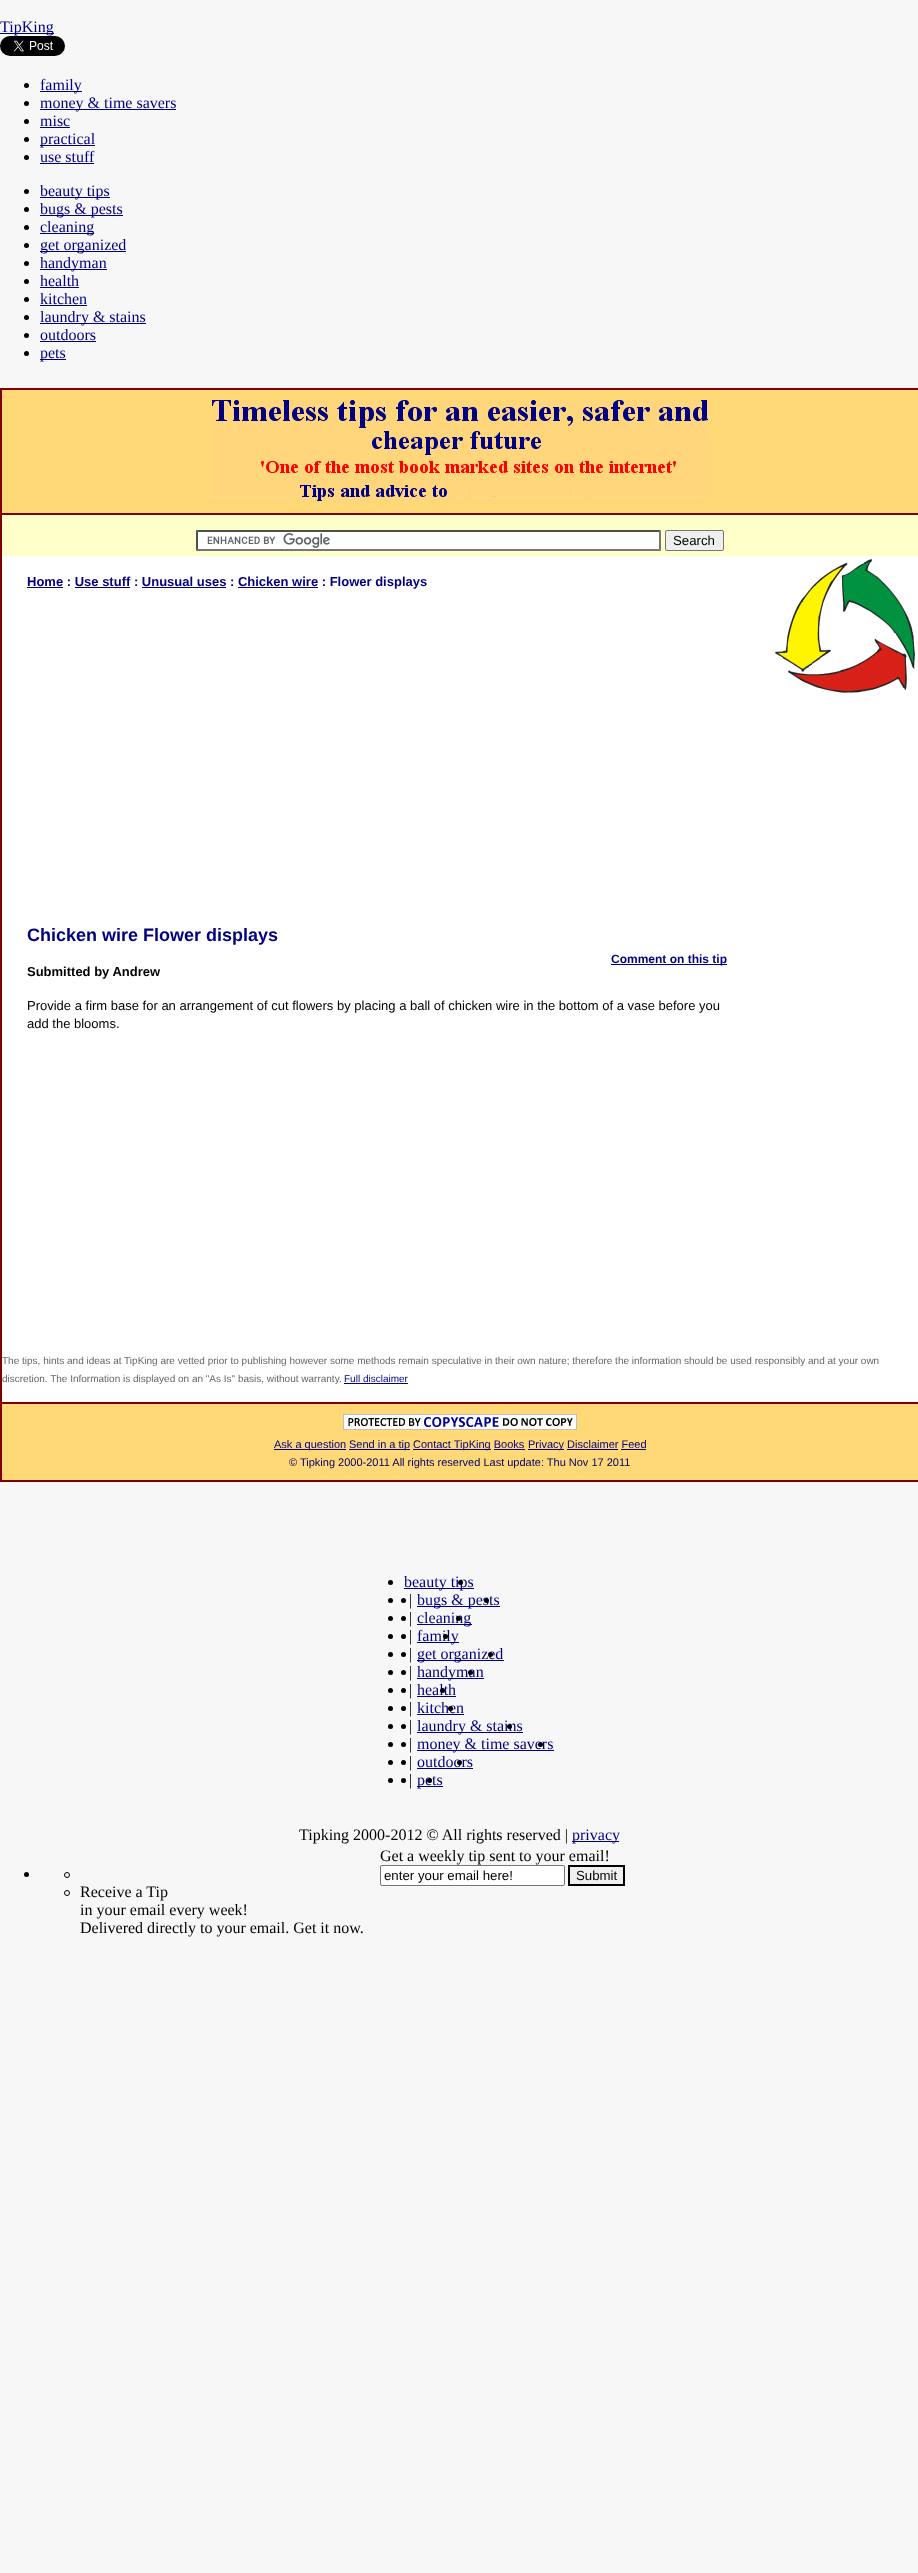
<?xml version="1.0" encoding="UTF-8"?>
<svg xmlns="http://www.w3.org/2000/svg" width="918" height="2573">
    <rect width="100%" height="100%" fill="#F7F7F7"/>
    <rect x="0" y="33" width="54" height="1" fill="#000080"/>
    <text x="0" y="32" font-family="Liberation Serif" font-size="16" fill="#000080">TipKing</text>
    <image x="0" y="36" width="65" height="20" href="img_01.png"/>
    <circle cx="26.5" cy="85.5" r="2.5" fill="#000000"/>
    <rect x="40" y="91" width="42" height="1" fill="#000080"/>
    <text x="40" y="90" font-family="Liberation Serif" font-size="16" fill="#000080">family</text>
    <circle cx="26.5" cy="103.5" r="2.5" fill="#000000"/>
    <rect x="40" y="109" width="136" height="1" fill="#000080"/>
    <text x="40" y="108" font-family="Liberation Serif" font-size="16" fill="#000080">money &amp; time savers</text>
    <circle cx="26.5" cy="121.5" r="2.5" fill="#000000"/>
    <text x="40" y="126" font-family="Liberation Serif" font-size="16" fill="#000080">misc</text>
    <rect x="40" y="127" width="30" height="1" fill="#000080"/>
    <circle cx="26.5" cy="139.5" r="2.5" fill="#000000"/>
    <rect x="40" y="145" width="55" height="1" fill="#000080"/>
    <text x="40" y="144" font-family="Liberation Serif" font-size="16" fill="#000080">practical</text>
    <circle cx="26.5" cy="157.5" r="2.5" fill="#000000"/>
    <text x="40" y="162" font-family="Liberation Serif" font-size="16" fill="#000080">use stuff</text>
    <rect x="40" y="163" width="54" height="1" fill="#000080"/>
    <circle cx="26.5" cy="191.5" r="2.5" fill="#000000"/>
    <rect x="40" y="197" width="70" height="1" fill="#000080"/>
    <text x="40" y="196" font-family="Liberation Serif" font-size="16" fill="#000080">beauty tips</text>
    <circle cx="26.5" cy="209.5" r="2.5" fill="#000000"/>
    <rect x="40" y="215" width="83" height="1" fill="#000080"/>
    <text x="40" y="214" font-family="Liberation Serif" font-size="16" fill="#000080">bugs &amp; pests</text>
    <circle cx="26.5" cy="227.5" r="2.5" fill="#000000"/>
    <rect x="40" y="233" width="54" height="1" fill="#000080"/>
    <text x="40" y="232" font-family="Liberation Serif" font-size="16" fill="#000080">cleaning</text>
    <circle cx="26.5" cy="245.5" r="2.5" fill="#000000"/>
    <rect x="40" y="251" width="86" height="1" fill="#000080"/>
    <text x="40" y="250" font-family="Liberation Serif" font-size="16" fill="#000080">get organized</text>
    <circle cx="26.5" cy="263.5" r="2.5" fill="#000000"/>
    <rect x="40" y="269" width="67" height="1" fill="#000080"/>
    <text x="40" y="268" font-family="Liberation Serif" font-size="16" fill="#000080">handyman</text>
    <circle cx="26.5" cy="281.5" r="2.5" fill="#000000"/>
    <text x="40" y="286" font-family="Liberation Serif" font-size="16" fill="#000080">health</text>
    <rect x="40" y="287" width="39" height="1" fill="#000080"/>
    <circle cx="26.5" cy="299.5" r="2.5" fill="#000000"/>
    <text x="40" y="304" font-family="Liberation Serif" font-size="16" fill="#000080">kitchen</text>
    <rect x="40" y="305" width="47" height="1" fill="#000080"/>
    <circle cx="26.5" cy="317.5" r="2.5" fill="#000000"/>
    <rect x="40" y="323" width="106" height="1" fill="#000080"/>
    <text x="40" y="322" font-family="Liberation Serif" font-size="16" fill="#000080">laundry &amp; stains</text>
    <circle cx="26.5" cy="335.5" r="2.5" fill="#000000"/>
    <text x="40" y="340" font-family="Liberation Serif" font-size="16" fill="#000080">outdoors</text>
    <rect x="40" y="341" width="56" height="1" fill="#000080"/>
    <circle cx="26.5" cy="353.5" r="2.5" fill="#000000"/>
    <rect x="40" y="359" width="26" height="1" fill="#000080"/>
    <text x="40" y="358" font-family="Liberation Serif" font-size="16" fill="#000080">pets</text>
    <rect x="0" y="388" width="918" height="1094" fill="#800000"/>
    <rect x="2" y="390" width="916" height="123" fill="#FFD878"/>
    <image x="212" y="400" width="496" height="101" href="img_02.png"/>
    <rect x="2" y="515" width="916" height="41" fill="#FFFFCA"/>
    <rect x="196" y="530" width="465" height="21" fill="#FFFFFF"/>
    <image x="207" y="533" width="123" height="15" href="img_03.png"/>
    <path d="M 196 530 H 661 L 659 532 H 198 Z" fill="#4F4F4F"/>
    <path d="M 661 530 V 551 L 659 549 V 532 Z" fill="#767676"/>
    <path d="M 661 551 H 196 L 198 549 H 659 Z" fill="#767676"/>
    <path d="M 196 551 V 530 L 198 532 V 549 Z" fill="#4F4F4F"/>
    <rect x="665.5" y="530.5" width="58" height="20" rx="1.5" fill="#EFEFEF" stroke="#767676"/>
    <text x="673" y="545" font-family="Liberation Sans" font-size="13.25" fill="#000000">Search</text>
    <rect x="2" y="556" width="916" height="846" fill="#FFFFFF"/>
    <rect x="27" y="587" width="36" height="1" fill="#000080"/>
    <text x="27" y="586" font-family="Liberation Sans" font-size="13" font-weight="700" fill="#000080">Home : Use stuff : Unusual uses : Chicken wire : Flower displays</text>
    <rect x="75" y="587" width="55" height="1" fill="#000080"/>
    <rect x="142" y="587" width="84" height="1" fill="#000080"/>
    <rect x="238" y="587" width="80" height="1" fill="#000080"/>
    <text x="27" y="941" font-family="Liberation Sans" font-size="18" font-weight="700" fill="#000080">Chicken wire Flower displays</text>
    <rect x="611" y="964" width="116" height="1" fill="#000080"/>
    <text x="611" y="963" font-family="Liberation Sans" font-size="12" font-weight="700" fill="#000080">Comment on this tip</text>
    <text x="27" y="976" font-family="Liberation Sans" font-size="13" font-weight="700" fill="#000000">Submitted by Andrew</text>
    <text font-family="Liberation Sans" font-size="13" fill="#000000">
        <tspan x="27" y="1010">Provide a firm base for an arrangement of cut flowers by placing a ball of chicken wire in the bottom of a vase before you</tspan>
        <tspan x="27" y="1028">add the blooms.</tspan>
    </text>
    <image x="775" y="559" width="140" height="134" href="img_04.png"/>
    <text font-family="Liberation Sans" font-size="10" fill="#666666">
        <tspan x="2" y="1364">The tips, hints and ideas at TipKing are vetted prior to publishing however some methods remain speculative in their own nature; therefore the information should be used responsibly and at your own</tspan>
        <tspan x="2" y="1382">discretion. The Information is displayed on an "As Is" basis, without warranty.</tspan>
    </text>
    <text x="344" y="1382" font-family="Liberation Sans" font-size="10" fill="#000080">Full disclaimer</text>
    <rect x="344" y="1383" width="64" height="1" fill="#000080"/>
    <rect x="2" y="1404" width="916" height="76" fill="#FFD878"/>
    <image x="343" y="1414" width="234" height="16" href="img_05.png"/>
    <rect x="274" y="1449" width="72" height="1" fill="#000080"/>
    <text x="274" y="1448" font-family="Liberation Sans" font-size="11" fill="#000080">Ask a question</text>
    <rect x="349" y="1449" width="61" height="1" fill="#000080"/>
    <text x="349" y="1448" font-family="Liberation Sans" font-size="11" fill="#000080">Send in a tip</text>
    <rect x="413" y="1449" width="78" height="1" fill="#000080"/>
    <text x="413" y="1448" font-family="Liberation Sans" font-size="11" fill="#000080">Contact TipKing Books</text>
    <rect x="494" y="1449" width="31" height="1" fill="#000080"/>
    <rect x="528" y="1449" width="36" height="1" fill="#000080"/>
    <text x="528" y="1448" font-family="Liberation Sans" font-size="11" fill="#000080">Privacy Disclaimer Feed</text>
    <rect x="567" y="1449" width="51" height="1" fill="#000080"/>
    <rect x="621" y="1449" width="25" height="1" fill="#000080"/>
    <text x="289" y="1466" font-family="Liberation Sans" font-size="11" fill="#000066">© Tipking 2000-2011 All rights reserved Last update: Thu Nov 17 2011</text>
    <circle cx="390.5" cy="1582.5" r="2.5" fill="#000000"/>
    <rect x="404" y="1588" width="70" height="1" fill="#000080"/>
    <text x="404" y="1587" font-family="Liberation Serif" font-size="16" fill="#000080">beauty tips</text>
    <circle cx="460.5" cy="1582.5" r="2.5" fill="#000000"/>
    <circle cx="390.5" cy="1600.5" r="2.5" fill="#000000"/>
    <text x="409" y="1605" font-family="Liberation Serif" font-size="16" fill="#000000">|</text>
    <circle cx="403.5" cy="1600.5" r="2.5" fill="#000000"/>
    <rect x="417" y="1606" width="83" height="1" fill="#000080"/>
    <text x="417" y="1605" font-family="Liberation Serif" font-size="16" fill="#000080">bugs &amp; pests</text>
    <circle cx="486.5" cy="1600.5" r="2.5" fill="#000000"/>
    <circle cx="390.5" cy="1618.5" r="2.5" fill="#000000"/>
    <text x="409" y="1623" font-family="Liberation Serif" font-size="16" fill="#000000">|</text>
    <circle cx="403.5" cy="1618.5" r="2.5" fill="#000000"/>
    <rect x="417" y="1624" width="55" height="1" fill="#000080"/>
    <text x="417" y="1623" font-family="Liberation Serif" font-size="16" fill="#000080">cleaning</text>
    <circle cx="458.5" cy="1618.5" r="2.5" fill="#000000"/>
    <circle cx="390.5" cy="1636.5" r="2.5" fill="#000000"/>
    <text x="409" y="1641" font-family="Liberation Serif" font-size="16" fill="#000000">|</text>
    <circle cx="403.5" cy="1636.5" r="2.5" fill="#000000"/>
    <rect x="417" y="1642" width="42" height="1" fill="#000080"/>
    <text x="417" y="1641" font-family="Liberation Serif" font-size="16" fill="#000080">family</text>
    <circle cx="445.5" cy="1636.5" r="2.5" fill="#000000"/>
    <circle cx="390.5" cy="1654.5" r="2.5" fill="#000000"/>
    <text x="409" y="1659" font-family="Liberation Serif" font-size="16" fill="#000000">|</text>
    <circle cx="403.5" cy="1654.5" r="2.5" fill="#000000"/>
    <rect x="417" y="1660" width="87" height="1" fill="#000080"/>
    <text x="417" y="1659" font-family="Liberation Serif" font-size="16" fill="#000080">get organized</text>
    <circle cx="490.5" cy="1654.5" r="2.5" fill="#000000"/>
    <circle cx="390.5" cy="1672.5" r="2.5" fill="#000000"/>
    <text x="409" y="1677" font-family="Liberation Serif" font-size="16" fill="#000000">|</text>
    <circle cx="403.5" cy="1672.5" r="2.5" fill="#000000"/>
    <rect x="417" y="1678" width="67" height="1" fill="#000080"/>
    <text x="417" y="1677" font-family="Liberation Serif" font-size="16" fill="#000080">handyman</text>
    <circle cx="470.5" cy="1672.5" r="2.5" fill="#000000"/>
    <circle cx="390.5" cy="1690.5" r="2.5" fill="#000000"/>
    <text x="409" y="1695" font-family="Liberation Serif" font-size="16" fill="#000000">|</text>
    <circle cx="403.5" cy="1690.5" r="2.5" fill="#000000"/>
    <text x="417" y="1695" font-family="Liberation Serif" font-size="16" fill="#000080">health</text>
    <rect x="417" y="1696" width="39" height="1" fill="#000080"/>
    <circle cx="442.5" cy="1690.5" r="2.5" fill="#000000"/>
    <circle cx="390.5" cy="1708.5" r="2.5" fill="#000000"/>
    <text x="409" y="1713" font-family="Liberation Serif" font-size="16" fill="#000000">|</text>
    <circle cx="403.5" cy="1708.5" r="2.5" fill="#000000"/>
    <text x="417" y="1713" font-family="Liberation Serif" font-size="16" fill="#000080">kitchen</text>
    <rect x="417" y="1714" width="47" height="1" fill="#000080"/>
    <circle cx="450.5" cy="1708.5" r="2.5" fill="#000000"/>
    <circle cx="390.5" cy="1726.5" r="2.5" fill="#000000"/>
    <text x="409" y="1731" font-family="Liberation Serif" font-size="16" fill="#000000">|</text>
    <circle cx="403.5" cy="1726.5" r="2.5" fill="#000000"/>
    <rect x="417" y="1732" width="106" height="1" fill="#000080"/>
    <text x="417" y="1731" font-family="Liberation Serif" font-size="16" fill="#000080">laundry &amp; stains</text>
    <circle cx="509.5" cy="1726.5" r="2.5" fill="#000000"/>
    <circle cx="390.5" cy="1744.5" r="2.5" fill="#000000"/>
    <text x="409" y="1749" font-family="Liberation Serif" font-size="16" fill="#000000">|</text>
    <circle cx="403.5" cy="1744.5" r="2.5" fill="#000000"/>
    <rect x="417" y="1750" width="137" height="1" fill="#000080"/>
    <text x="417" y="1749" font-family="Liberation Serif" font-size="16" fill="#000080">money &amp; time savers</text>
    <circle cx="540.5" cy="1744.5" r="2.5" fill="#000000"/>
    <circle cx="390.5" cy="1762.5" r="2.5" fill="#000000"/>
    <text x="409" y="1767" font-family="Liberation Serif" font-size="16" fill="#000000">|</text>
    <circle cx="403.5" cy="1762.5" r="2.5" fill="#000000"/>
    <text x="417" y="1767" font-family="Liberation Serif" font-size="16" fill="#000080">outdoors</text>
    <rect x="417" y="1768" width="56" height="1" fill="#000080"/>
    <circle cx="459.5" cy="1762.5" r="2.5" fill="#000000"/>
    <circle cx="390.5" cy="1780.5" r="2.5" fill="#000000"/>
    <text x="409" y="1785" font-family="Liberation Serif" font-size="16" fill="#000000">|</text>
    <circle cx="403.5" cy="1780.5" r="2.5" fill="#000000"/>
    <rect x="417" y="1786" width="26" height="1" fill="#000080"/>
    <text x="417" y="1785" font-family="Liberation Serif" font-size="16" fill="#000080">pets</text>
    <circle cx="429.5" cy="1780.5" r="2.5" fill="#000000"/>
    <text x="299" y="1840" font-family="Liberation Serif" font-size="16" fill="#000000">Tipking 2000-2012 © All rights reserved |</text>
    <rect x="572" y="1841" width="47" height="1" fill="#000080"/>
    <text x="572" y="1840" font-family="Liberation Serif" font-size="16" fill="#000080">privacy</text>
    <text x="380" y="1861" font-family="Liberation Serif" font-size="16" fill="#000000">Get a weekly tip sent to your email!</text>
    <rect x="380.5" y="1865.5" width="184" height="20" rx="1.5" fill="#FFFFFF" stroke="#767676"/>
    <text x="384" y="1880" font-family="Liberation Sans" font-size="13.25" fill="#000000">enter your email here!</text>
    <rect x="569" y="1866" width="55" height="19" fill="#F0F0F0" stroke="#000000" stroke-width="2"/>
    <text x="576" y="1880" font-family="Liberation Sans" font-size="13.25" fill="#000000">Submit</text>
    <circle cx="26.5" cy="1874.5" r="2.5" fill="#000000"/>
    <circle cx="67" cy="1875" r="2.5" fill="none" stroke="#000000"/>
    <circle cx="67" cy="1893" r="2.5" fill="none" stroke="#000000"/>
    <text font-family="Liberation Serif" font-size="16" fill="#000000">
        <tspan x="80" y="1897">Receive a Tip</tspan>
        <tspan x="80" y="1915">in your email every week!</tspan>
        <tspan x="80" y="1933">Delivered directly to your email. Get it now.</tspan>
    </text>
</svg>
